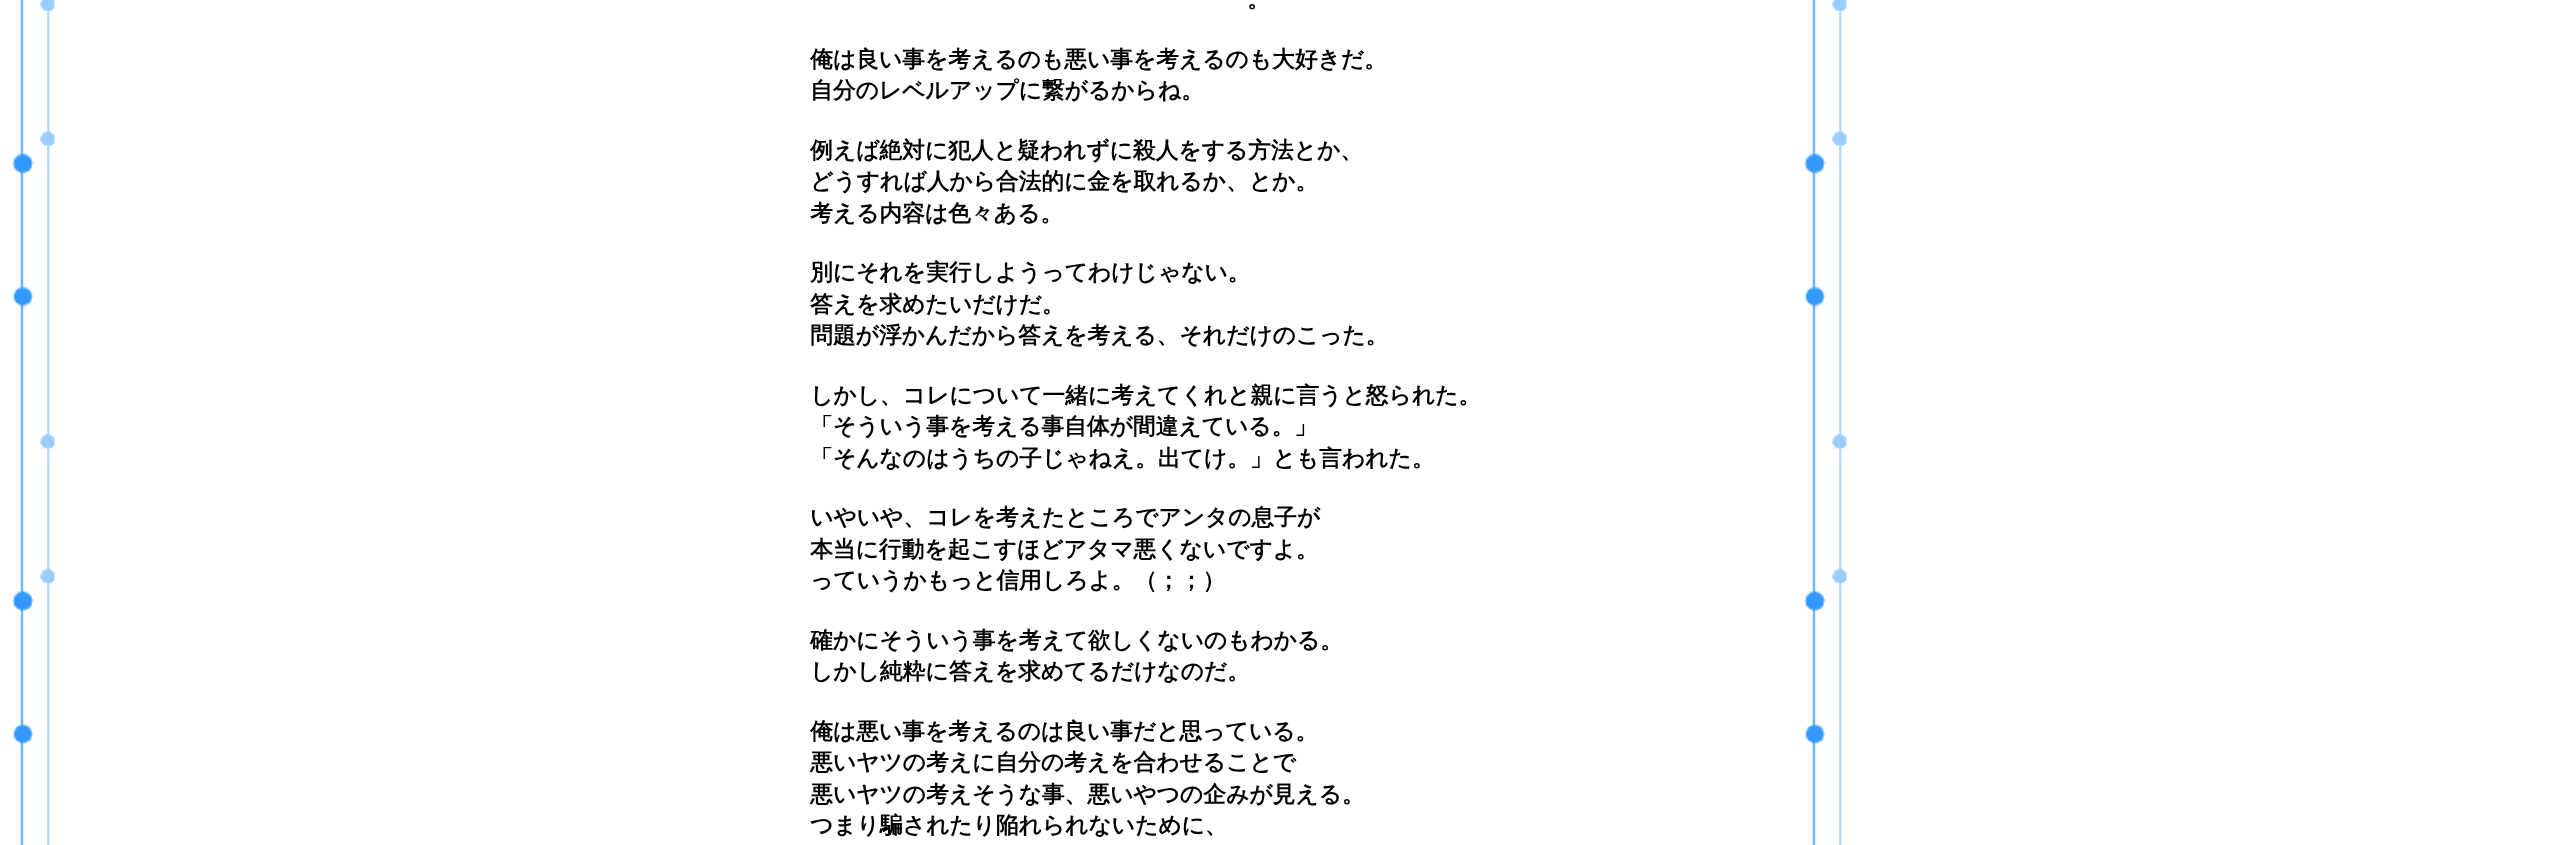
<?xml version="1.0" encoding="UTF-8"?>
<svg xmlns="http://www.w3.org/2000/svg" width="2554" height="845">
    <rect width="100%" height="100%" fill="#FFFFFF"/>
    <image x="12" y="0" width="1835" height="845" href="img_01.png"/>
    <text x="1247" y="7" font-family="WenQuanYi Zen Hei" font-size="22.75" font-weight="700" fill="#000000">。</text>
    <text font-family="WenQuanYi Zen Hei" font-size="22.75" font-weight="700" fill="#000000">
        <tspan x="810" y="67">俺は良い事を考えるのも悪い事を考えるのも大好きだ。</tspan>
        <tspan x="810" y="98">自分のレベルアップに繋がるからね。</tspan>
    </text>
    <text font-family="WenQuanYi Zen Hei" font-size="22.75" font-weight="700" fill="#000000">
        <tspan x="810" y="158">例えば絶対に犯人と疑われずに殺人をする方法とか、</tspan>
        <tspan x="810" y="189">どうすれば人から合法的に金を取れるか、とか。</tspan>
        <tspan x="810" y="221">考える内容は色々ある。</tspan>
    </text>
    <text font-family="WenQuanYi Zen Hei" font-size="22.75" font-weight="700" fill="#000000">
        <tspan x="810" y="280">別にそれを実行しようってわけじゃない。</tspan>
        <tspan x="810" y="312">答えを求めたいだけだ。</tspan>
        <tspan x="810" y="343">問題が浮かんだから答えを考える、それだけのこった。</tspan>
    </text>
    <text font-family="WenQuanYi Zen Hei" font-size="22.75" font-weight="700" fill="#000000">
        <tspan x="810" y="403">しかし、コレについて一緒に考えてくれと親に言うと怒られた。</tspan>
        <tspan x="810" y="434">「そういう事を考える事自体が間違えている。」</tspan>
        <tspan x="810" y="466">「そんなのはうちの子じゃねえ。出てけ。」とも言われた。</tspan>
    </text>
    <text font-family="WenQuanYi Zen Hei" font-size="22.75" font-weight="700" fill="#000000">
        <tspan x="810" y="525">いやいや、コレを考えたところでアンタの息子が</tspan>
        <tspan x="810" y="557">本当に行動を起こすほどアタマ悪くないですよ。</tspan>
        <tspan x="810" y="588">っていうかもっと信用しろよ。（；；）</tspan>
    </text>
    <text font-family="WenQuanYi Zen Hei" font-size="22.75" font-weight="700" fill="#000000">
        <tspan x="810" y="648">確かにそういう事を考えて欲しくないのもわかる。</tspan>
        <tspan x="810" y="679">しかし純粋に答えを求めてるだけなのだ。</tspan>
    </text>
    <text font-family="WenQuanYi Zen Hei" font-size="22.75" font-weight="700" fill="#000000">
        <tspan x="810" y="739">俺は悪い事を考えるのは良い事だと思っている。</tspan>
        <tspan x="810" y="770">悪いヤツの考えに自分の考えを合わせることで</tspan>
        <tspan x="810" y="802">悪いヤツの考えそうな事、悪いやつの企みが見える。</tspan>
        <tspan x="810" y="833">つまり騙されたり陥れられないために、</tspan>
    </text>
</svg>
